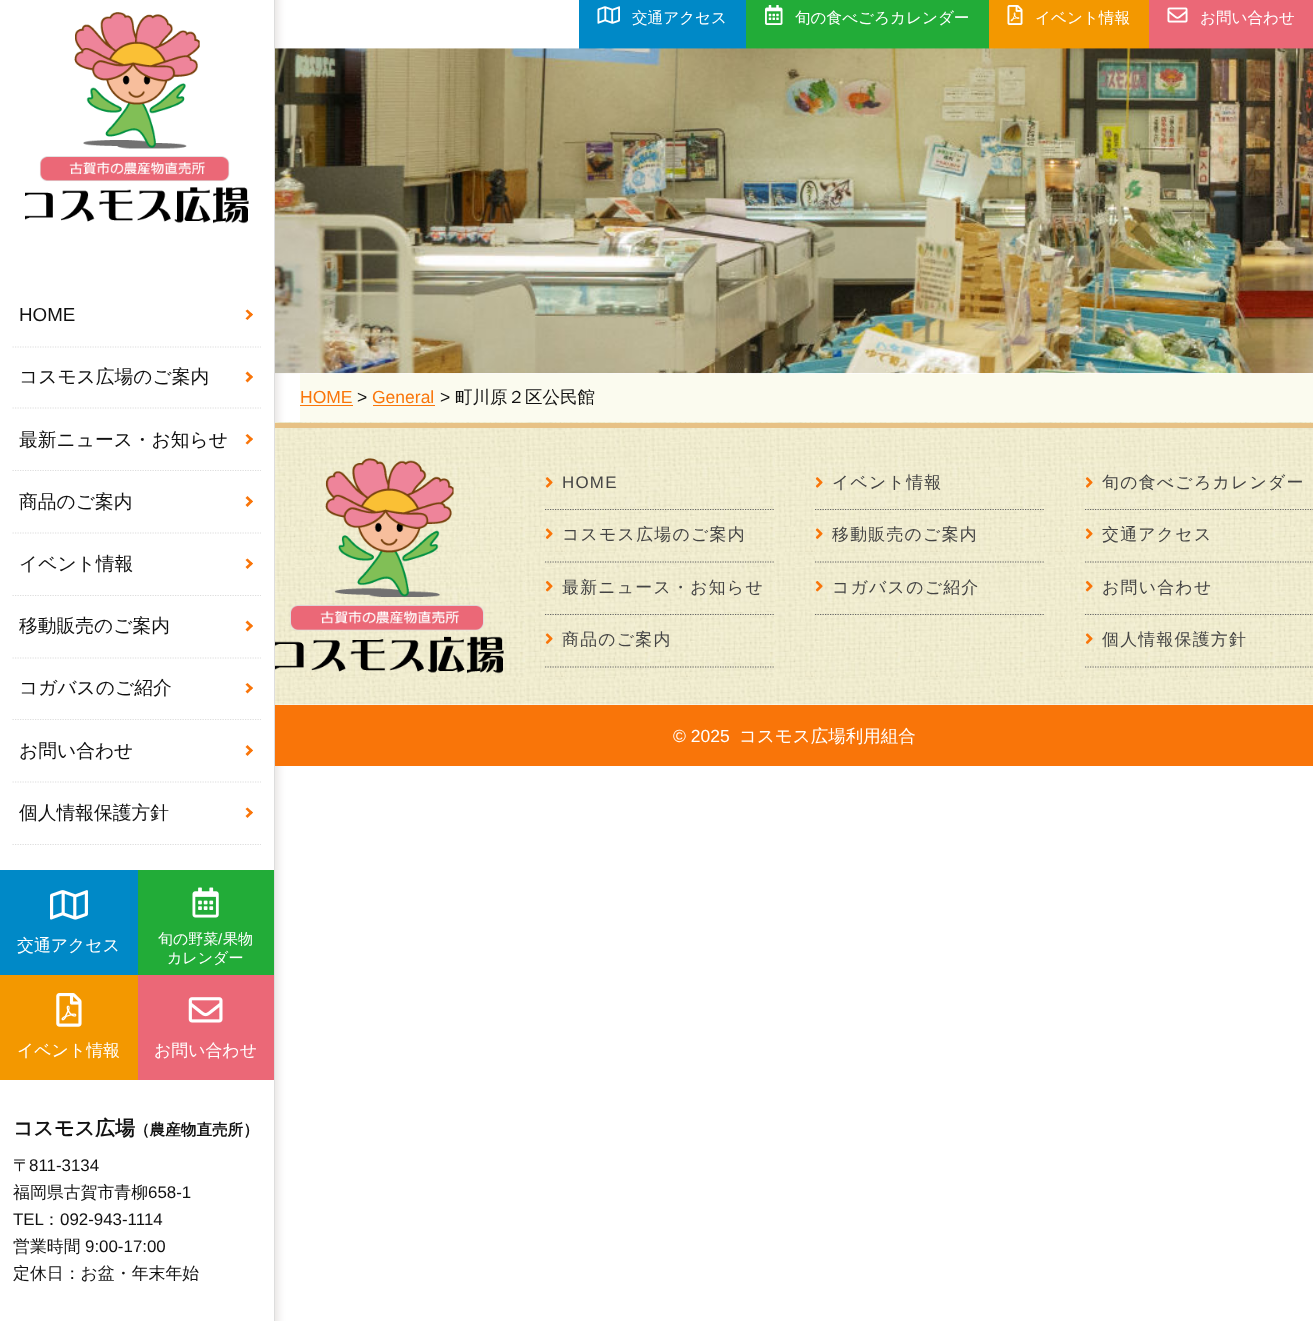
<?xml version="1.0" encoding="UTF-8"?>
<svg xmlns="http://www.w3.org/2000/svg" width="1313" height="1321">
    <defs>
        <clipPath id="clip1"><rect x="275" y="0" width="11" height="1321"/></clipPath>
        <filter id="blur1" x="-50%" y="-200%" width="200%" height="500%"><feGaussianBlur stdDeviation="4"/></filter>
    </defs>
    <rect width="100%" height="100%" fill="#FFFFFF"/>
    <g clip-path="url(#clip1)">
        <rect x="5" y="-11" width="273" height="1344" fill="#E6E3E2" filter="url(#blur1)"/>
    </g>
    <rect x="274" y="0" width="1" height="1321" fill="#DDDDDD"/>
    <image x="25" y="12" width="224" height="212" href="img_01.png"/>
    <path d="M 12.5 347 H 261" fill="none" stroke="#DDDDDD" stroke-width="1.2" stroke-dasharray="1.25 1.25"/>
    <text x="19" y="321" font-family="Liberation Sans" font-size="18.75" fill="#111111">HOME</text>
    <path d="M 245.5 311 L 247.5 309.5 L 253 314.5 L 251 316.5 Z" fill="#F97509"/>
    <path d="M 245.5 318.5 L 251 313 L 253 314.5 L 247.5 320 Z" fill="#F97509"/>
    <path d="M 12.5 408 H 261" fill="none" stroke="#DDDDDD" stroke-width="1.2" stroke-dasharray="1.25 1.25"/>
    <text x="19" y="383" font-family="WenQuanYi Zen Hei" font-size="18.75" font-weight="500" fill="#111111">コスモス広場のご案内</text>
    <path d="M 245.5 373.5 L 247.5 371.5 L 253 377 L 251 378.5 Z" fill="#F97509"/>
    <path d="M 245.5 380.5 L 251 375 L 253 377 L 247.5 382.5 Z" fill="#F97509"/>
    <path d="M 12.5 470.5 H 261" fill="none" stroke="#DDDDDD" stroke-width="1.2" stroke-dasharray="1.25 1.25"/>
    <text x="19" y="446" font-family="WenQuanYi Zen Hei" font-size="18.75" font-weight="500" fill="#111111">最新ニュース・お知らせ</text>
    <path d="M 245.5 435.5 L 247.5 434 L 253 439 L 251 441 Z" fill="#F97509"/>
    <path d="M 245.5 443 L 251 437.5 L 253 439 L 247.5 444.5 Z" fill="#F97509"/>
    <path d="M 12.5 533 H 261" fill="none" stroke="#DDDDDD" stroke-width="1.2" stroke-dasharray="1.25 1.25"/>
    <text x="19" y="508" font-family="WenQuanYi Zen Hei" font-size="18.75" font-weight="500" fill="#111111">商品のご案内</text>
    <path d="M 245.5 498 L 247.5 496 L 253 501.5 L 251 503 Z" fill="#F97509"/>
    <path d="M 245.5 505 L 251 499.5 L 253 501.5 L 247.5 507 Z" fill="#F97509"/>
    <path d="M 12.5 595.5 H 261" fill="none" stroke="#DDDDDD" stroke-width="1.2" stroke-dasharray="1.25 1.25"/>
    <text x="19" y="570" font-family="WenQuanYi Zen Hei" font-size="18.75" font-weight="500" fill="#111111">イベント情報</text>
    <path d="M 245.5 560 L 247.5 558.5 L 253 563.5 L 251 565.5 Z" fill="#F97509"/>
    <path d="M 245.5 567 L 251 562 L 253 563.5 L 247.5 569 Z" fill="#F97509"/>
    <path d="M 12.5 658 H 261" fill="none" stroke="#DDDDDD" stroke-width="1.2" stroke-dasharray="1.25 1.25"/>
    <text x="19" y="632" font-family="WenQuanYi Zen Hei" font-size="18.75" font-weight="500" fill="#111111">移動販売のご案内</text>
    <path d="M 245.5 622.5 L 247.5 620.5 L 253 626 L 251 627.5 Z" fill="#F97509"/>
    <path d="M 245.5 629.5 L 251 624 L 253 626 L 247.5 631.5 Z" fill="#F97509"/>
    <path d="M 12.5 719.5 H 261" fill="none" stroke="#DDDDDD" stroke-width="1.2" stroke-dasharray="1.25 1.25"/>
    <text x="19" y="694" font-family="WenQuanYi Zen Hei" font-size="18.75" font-weight="500" fill="#111111">コガバスのご紹介</text>
    <path d="M 245.5 684.5 L 247.5 683 L 253 688 L 251 690 Z" fill="#F97509"/>
    <path d="M 245.5 691.5 L 251 686.5 L 253 688 L 247.5 693.5 Z" fill="#F97509"/>
    <path d="M 12.5 782 H 261" fill="none" stroke="#DDDDDD" stroke-width="1.2" stroke-dasharray="1.25 1.25"/>
    <text x="19" y="757" font-family="WenQuanYi Zen Hei" font-size="18.75" font-weight="500" fill="#111111">お問い合わせ</text>
    <path d="M 245.5 747 L 247.5 745 L 253 750.5 L 251 752 Z" fill="#F97509"/>
    <path d="M 245.5 754 L 251 748.5 L 253 750.5 L 247.5 756 Z" fill="#F97509"/>
    <path d="M 12.5 844.5 H 261" fill="none" stroke="#DDDDDD" stroke-width="1.2" stroke-dasharray="1.25 1.25"/>
    <text x="19" y="819" font-family="WenQuanYi Zen Hei" font-size="18.75" font-weight="500" fill="#111111">個人情報保護方針</text>
    <path d="M 245.5 809 L 247.5 807.5 L 253 812.5 L 251 814.5 Z" fill="#F97509"/>
    <path d="M 245.5 816 L 251 811 L 253 812.5 L 247.5 818 Z" fill="#F97509"/>
    <rect x="0" y="870" width="138" height="105" fill="#0089C7"/>
    <image x="50" y="890" width="38" height="30" href="img_02.png"/>
    <text x="17" y="951" font-family="WenQuanYi Zen Hei" font-size="16.9" font-weight="500" fill="#FFFFFF">交通アクセス</text>
    <rect x="138" y="870" width="136" height="105" fill="#22AC38"/>
    <image x="192" y="887" width="27" height="31" href="img_03.png"/>
    <text x="158" y="944" font-family="WenQuanYi Zen Hei" font-size="15" font-weight="500" fill="#FFFFFF">旬の野菜</text>
    <text x="218" y="944" font-family="Liberation Sans" font-size="15" fill="#FFFFFF">/</text>
    <text x="223" y="944" font-family="WenQuanYi Zen Hei" font-size="15" font-weight="500" fill="#FFFFFF">果物</text>
    <text x="167" y="963" font-family="WenQuanYi Zen Hei" font-size="15" font-weight="500" fill="#FFFFFF">カレンダー</text>
    <rect x="0" y="975" width="138" height="105" fill="#F39800"/>
    <image x="56" y="993" width="26" height="34" href="img_04.png"/>
    <text x="17" y="1056" font-family="WenQuanYi Zen Hei" font-size="16.9" font-weight="500" fill="#FFFFFF">イベント情報</text>
    <rect x="138" y="975" width="136" height="105" fill="#EB6877"/>
    <image x="188" y="997" width="35" height="26" href="img_05.png"/>
    <text x="154" y="1056" font-family="WenQuanYi Zen Hei" font-size="16.9" font-weight="500" fill="#FFFFFF">お問い合わせ</text>
    <text x="13" y="1135" font-family="WenQuanYi Zen Hei" font-size="20" font-weight="700" fill="#111111">コスモス広場</text>
    <text x="134" y="1135" font-family="WenQuanYi Zen Hei" font-size="15.6" font-weight="700" fill="#111111">（農産物直売所）</text>
    <text x="13" y="1171" font-family="WenQuanYi Zen Hei" font-size="16.9" font-weight="500" fill="#111111">〒</text>
    <text x="29" y="1171" font-family="Liberation Sans" font-size="16.9" fill="#111111">811-3134</text>
    <text x="13" y="1198" font-family="WenQuanYi Zen Hei" font-size="16.9" font-weight="500" fill="#111111">福岡県古賀市青柳</text>
    <text x="148" y="1198" font-family="Liberation Sans" font-size="16.9" fill="#111111">658-1</text>
    <text x="13" y="1225" font-family="Liberation Sans" font-size="16.9" fill="#111111">TEL</text>
    <text x="43" y="1225" font-family="WenQuanYi Zen Hei" font-size="16.9" font-weight="500" fill="#111111">：</text>
    <text x="60" y="1225" font-family="Liberation Sans" font-size="16.9" fill="#111111">092-943-1114</text>
    <text x="13" y="1252" font-family="WenQuanYi Zen Hei" font-size="16.9" font-weight="500" fill="#111111">営業時間</text>
    <text x="85" y="1252" font-family="Liberation Sans" font-size="16.9" fill="#111111">9:00-17:00</text>
    <text x="13" y="1279" font-family="WenQuanYi Zen Hei" font-size="16.9" font-weight="500" fill="#111111">定休日：お盆・年末年始</text>
    <rect x="579" y="0" width="167" height="49" fill="#0089C7"/>
    <image x="597" y="6" width="23" height="18" href="img_06.png"/>
    <text x="632" y="23" font-family="WenQuanYi Zen Hei" font-size="15.6" font-weight="500" fill="#FFFFFF">交通アクセス</text>
    <rect x="746" y="0" width="243" height="49" fill="#22AC38"/>
    <image x="765" y="5" width="18" height="20" href="img_07.png"/>
    <text x="795" y="23" font-family="WenQuanYi Zen Hei" font-size="15.6" font-weight="500" fill="#FFFFFF">旬の食べごろカレンダー</text>
    <rect x="989" y="0" width="160" height="49" fill="#F39800"/>
    <image x="1007" y="5" width="16" height="20" href="img_08.png"/>
    <text x="1035" y="23" font-family="WenQuanYi Zen Hei" font-size="15.6" font-weight="500" fill="#FFFFFF">イベント情報</text>
    <rect x="1149" y="0" width="164" height="49" fill="#EB6877"/>
    <image x="1167" y="7" width="21" height="16" href="img_09.png"/>
    <text x="1200" y="23" font-family="WenQuanYi Zen Hei" font-size="15.6" font-weight="500" fill="#FFFFFF">お問い合わせ</text>
    <image x="275" y="48" width="1038" height="326" href="img_10.png"/>
    <rect x="300" y="374" width="1013" height="48" fill="#FBFBEF"/>
    <text x="300" y="403" font-family="Liberation Sans" font-size="17.5" fill="#F97509">HOME</text>
    <rect x="300" y="405" width="53" height="1" fill="#F97509"/>
    <text x="357" y="403" font-family="Liberation Sans" font-size="17.5" fill="#111111">&gt;</text>
    <text x="372" y="403" font-family="Liberation Sans" font-size="17.5" fill="#F97509">General</text>
    <rect x="373" y="405" width="62" height="1" fill="#F97509"/>
    <text x="440" y="403" font-family="Liberation Sans" font-size="17.5" fill="#111111">&gt;</text>
    <text x="455" y="403" font-family="WenQuanYi Zen Hei" font-size="17.5" font-weight="500" fill="#111111">町川原２区公民館</text>
    <image x="275" y="422" width="1038" height="283" href="img_11.png"/>
    <rect x="275" y="423" width="1038" height="5" fill="#E7C185"/>
    <image x="275" y="458" width="229" height="216" href="img_12.png"/>
    <path d="M 545 509.5 H 774" fill="none" stroke="#666666" stroke-width="1.2" stroke-dasharray="1.25 1.25"/>
    <image x="545" y="477" width="8" height="11" href="img_13.png"/>
    <text x="562" y="488" font-family="Liberation Sans" font-size="16.9" letter-spacing="1.25" fill="#444444">HOME</text>
    <path d="M 545 562 H 774" fill="none" stroke="#666666" stroke-width="1.2" stroke-dasharray="1.25 1.25"/>
    <image x="545" y="528" width="8" height="11" href="img_14.png"/>
    <text x="562" y="540" font-family="WenQuanYi Zen Hei" font-size="16.9" font-weight="500" letter-spacing="1.25" fill="#444444">コスモス広場のご案内</text>
    <path d="M 545 614.5 H 774" fill="none" stroke="#666666" stroke-width="1.2" stroke-dasharray="1.25 1.25"/>
    <image x="545" y="580" width="8" height="12" href="img_15.png"/>
    <text x="562" y="593" font-family="WenQuanYi Zen Hei" font-size="16.9" font-weight="500" letter-spacing="1.25" fill="#444444">最新ニュース・お知らせ</text>
    <path d="M 545 667 H 774" fill="none" stroke="#666666" stroke-width="1.2" stroke-dasharray="1.25 1.25"/>
    <image x="545" y="633" width="8" height="11" href="img_16.png"/>
    <text x="562" y="645" font-family="WenQuanYi Zen Hei" font-size="16.9" font-weight="500" letter-spacing="1.25" fill="#444444">商品のご案内</text>
    <path d="M 815 509.5 H 1044" fill="none" stroke="#666666" stroke-width="1.2" stroke-dasharray="1.25 1.25"/>
    <image x="815" y="477" width="8" height="11" href="img_17.png"/>
    <text x="832" y="488" font-family="WenQuanYi Zen Hei" font-size="16.9" font-weight="500" letter-spacing="1.25" fill="#444444">イベント情報</text>
    <path d="M 815 562 H 1044" fill="none" stroke="#666666" stroke-width="1.2" stroke-dasharray="1.25 1.25"/>
    <image x="815" y="528" width="8" height="11" href="img_18.png"/>
    <text x="832" y="540" font-family="WenQuanYi Zen Hei" font-size="16.9" font-weight="500" letter-spacing="1.25" fill="#444444">移動販売のご案内</text>
    <path d="M 815 614.5 H 1044" fill="none" stroke="#666666" stroke-width="1.2" stroke-dasharray="1.25 1.25"/>
    <image x="815" y="580" width="8" height="12" href="img_19.png"/>
    <text x="832" y="593" font-family="WenQuanYi Zen Hei" font-size="16.9" font-weight="500" letter-spacing="1.25" fill="#444444">コガバスのご紹介</text>
    <path d="M 1085 509.5 H 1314" fill="none" stroke="#666666" stroke-width="1.2" stroke-dasharray="1.25 1.25"/>
    <image x="1085" y="477" width="8" height="11" href="img_20.png"/>
    <text x="1102" y="488" font-family="WenQuanYi Zen Hei" font-size="16.9" font-weight="500" letter-spacing="1.25" fill="#444444">旬の食べごろカレンダー</text>
    <path d="M 1085 562 H 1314" fill="none" stroke="#666666" stroke-width="1.2" stroke-dasharray="1.25 1.25"/>
    <image x="1085" y="528" width="8" height="11" href="img_21.png"/>
    <text x="1102" y="540" font-family="WenQuanYi Zen Hei" font-size="16.9" font-weight="500" letter-spacing="1.25" fill="#444444">交通アクセス</text>
    <path d="M 1085 614.5 H 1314" fill="none" stroke="#666666" stroke-width="1.2" stroke-dasharray="1.25 1.25"/>
    <image x="1085" y="580" width="8" height="12" href="img_22.png"/>
    <text x="1102" y="593" font-family="WenQuanYi Zen Hei" font-size="16.9" font-weight="500" letter-spacing="1.25" fill="#444444">お問い合わせ</text>
    <path d="M 1085 667 H 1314" fill="none" stroke="#666666" stroke-width="1.2" stroke-dasharray="1.25 1.25"/>
    <image x="1085" y="633" width="8" height="11" href="img_23.png"/>
    <text x="1102" y="645" font-family="WenQuanYi Zen Hei" font-size="16.9" font-weight="500" letter-spacing="1.25" fill="#444444">個人情報保護方針</text>
    <rect x="275" y="705" width="1038" height="61" fill="#F97509"/>
    <text x="673" y="742" font-family="Liberation Sans" font-size="17.5" fill="#FFFFFF">© 2025</text>
    <text x="739" y="742" font-family="WenQuanYi Zen Hei" font-size="17.5" font-weight="500" fill="#FFFFFF">コスモス広場利用組合</text>
</svg>
